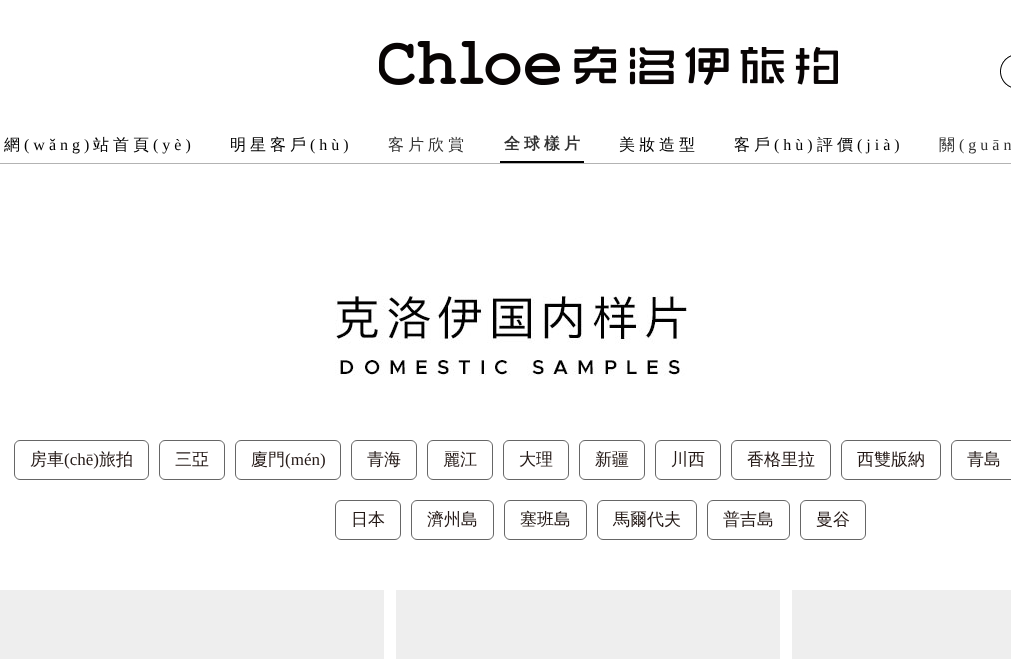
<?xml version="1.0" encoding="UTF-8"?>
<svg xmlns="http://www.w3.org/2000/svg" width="1011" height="659">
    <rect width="100%" height="100%" fill="#FFFFFF"/>
    <image x="379" y="41" width="459" height="44" href="img_01.png"/>
    <image x="1000" y="55" width="11" height="33" href="img_02.png"/>
    <text x="4" y="150" font-family="WenQuanYi Zen Hei" font-size="16" font-weight="500" letter-spacing="4" fill="#000000">網</text>
    <text x="24" y="150" font-family="Liberation Serif" font-size="16" letter-spacing="4" fill="#000000">(wǎng)</text>
    <text x="93" y="150" font-family="WenQuanYi Zen Hei" font-size="16" font-weight="500" letter-spacing="4" fill="#000000">站首頁</text>
    <text x="153" y="150" font-family="Liberation Serif" font-size="16" letter-spacing="4" fill="#000000">(yè)</text>
    <text x="230" y="150" font-family="WenQuanYi Zen Hei" font-size="16" font-weight="500" letter-spacing="4" fill="#000000">明星客戶</text>
    <text x="310" y="150" font-family="Liberation Serif" font-size="16" letter-spacing="4" fill="#000000">(hù)</text>
    <text x="388" y="150" font-family="WenQuanYi Zen Hei" font-size="16" font-weight="500" letter-spacing="4" fill="#333333">客片欣賞</text>
    <rect x="500" y="161" width="84" height="2" fill="#000000"/>
    <text x="504" y="149" font-family="WenQuanYi Zen Hei" font-size="16" font-weight="700" letter-spacing="4" fill="#333333">全球樣片</text>
    <text x="619" y="150" font-family="WenQuanYi Zen Hei" font-size="16" font-weight="500" letter-spacing="4" fill="#000000">美妝造型</text>
    <text x="734" y="150" font-family="WenQuanYi Zen Hei" font-size="16" font-weight="500" letter-spacing="4" fill="#000000">客戶</text>
    <text x="774" y="150" font-family="Liberation Serif" font-size="16" letter-spacing="4" fill="#000000">(hù)</text>
    <text x="817" y="150" font-family="WenQuanYi Zen Hei" font-size="16" font-weight="500" letter-spacing="4" fill="#000000">評價</text>
    <text x="857" y="150" font-family="Liberation Serif" font-size="16" letter-spacing="4" fill="#000000">(jià)</text>
    <text x="939" y="150" font-family="WenQuanYi Zen Hei" font-size="16" font-weight="500" letter-spacing="4" fill="#333333">關</text>
    <text x="959" y="150" font-family="Liberation Serif" font-size="16" letter-spacing="4" fill="#333333">(guān</text>
    <rect x="0" y="163" width="1011" height="1" fill="#B3B3B3"/>
    <image x="335" y="296" width="352" height="80" href="img_03.png"/>
    <rect x="14.5" y="440.5" width="134" height="39" rx="5.5" fill="none" stroke="#666666"/>
    <text x="30" y="465" font-family="WenQuanYi Zen Hei" font-size="17" font-weight="500" fill="#231815">房車</text>
    <text x="64" y="465" font-family="Liberation Serif" font-size="17" fill="#231815">(chē)</text>
    <text x="99" y="465" font-family="WenQuanYi Zen Hei" font-size="17" font-weight="500" fill="#231815">旅拍</text>
    <rect x="159.5" y="440.5" width="65" height="39" rx="5.5" fill="none" stroke="#666666"/>
    <text x="175" y="465" font-family="WenQuanYi Zen Hei" font-size="17" font-weight="500" fill="#231815">三亞</text>
    <rect x="235.5" y="440.5" width="105" height="39" rx="5.5" fill="none" stroke="#666666"/>
    <text x="251" y="465" font-family="WenQuanYi Zen Hei" font-size="17" font-weight="500" fill="#231815">廈門</text>
    <text x="285" y="465" font-family="Liberation Serif" font-size="17" fill="#231815">(mén)</text>
    <rect x="351.5" y="440.5" width="65" height="39" rx="5.5" fill="none" stroke="#666666"/>
    <text x="367" y="465" font-family="WenQuanYi Zen Hei" font-size="17" font-weight="500" fill="#231815">青海</text>
    <rect x="427.5" y="440.5" width="65" height="39" rx="5.5" fill="none" stroke="#666666"/>
    <text x="443" y="465" font-family="WenQuanYi Zen Hei" font-size="17" font-weight="500" fill="#231815">麗江</text>
    <rect x="503.5" y="440.5" width="65" height="39" rx="5.5" fill="none" stroke="#666666"/>
    <text x="519" y="465" font-family="WenQuanYi Zen Hei" font-size="17" font-weight="500" fill="#231815">大理</text>
    <rect x="579.5" y="440.5" width="65" height="39" rx="5.5" fill="none" stroke="#666666"/>
    <text x="595" y="465" font-family="WenQuanYi Zen Hei" font-size="17" font-weight="500" fill="#231815">新疆</text>
    <rect x="655.5" y="440.5" width="65" height="39" rx="5.5" fill="none" stroke="#666666"/>
    <text x="671" y="465" font-family="WenQuanYi Zen Hei" font-size="17" font-weight="500" fill="#231815">川西</text>
    <rect x="731.5" y="440.5" width="99" height="39" rx="5.5" fill="none" stroke="#666666"/>
    <text x="747" y="465" font-family="WenQuanYi Zen Hei" font-size="17" font-weight="500" fill="#231815">香格里拉</text>
    <rect x="841.5" y="440.5" width="99" height="39" rx="5.5" fill="none" stroke="#666666"/>
    <text x="857" y="465" font-family="WenQuanYi Zen Hei" font-size="17" font-weight="500" fill="#231815">西雙版納</text>
    <rect x="951.5" y="440.5" width="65" height="39" rx="5.5" fill="none" stroke="#666666"/>
    <text x="967" y="465" font-family="WenQuanYi Zen Hei" font-size="17" font-weight="500" fill="#231815">青島</text>
    <rect x="335.5" y="500.5" width="65" height="39" rx="5.5" fill="none" stroke="#666666"/>
    <text x="351" y="525" font-family="WenQuanYi Zen Hei" font-size="17" font-weight="500" fill="#231815">日本</text>
    <rect x="411.5" y="500.5" width="82" height="39" rx="5.5" fill="none" stroke="#666666"/>
    <text x="427" y="525" font-family="WenQuanYi Zen Hei" font-size="17" font-weight="500" fill="#231815">濟州島</text>
    <rect x="504.5" y="500.5" width="82" height="39" rx="5.5" fill="none" stroke="#666666"/>
    <text x="520" y="525" font-family="WenQuanYi Zen Hei" font-size="17" font-weight="500" fill="#231815">塞班島</text>
    <rect x="597.5" y="500.5" width="99" height="39" rx="5.5" fill="none" stroke="#666666"/>
    <text x="613" y="525" font-family="WenQuanYi Zen Hei" font-size="17" font-weight="500" fill="#231815">馬爾代夫</text>
    <rect x="707.5" y="500.5" width="82" height="39" rx="5.5" fill="none" stroke="#666666"/>
    <text x="723" y="525" font-family="WenQuanYi Zen Hei" font-size="17" font-weight="500" fill="#231815">普吉島</text>
    <rect x="800.5" y="500.5" width="65" height="39" rx="5.5" fill="none" stroke="#666666"/>
    <text x="816" y="525" font-family="WenQuanYi Zen Hei" font-size="17" font-weight="500" fill="#231815">曼谷</text>
    <rect x="0" y="590" width="384" height="69" fill="#EEEEEE"/>
    <rect x="396" y="590" width="384" height="69" fill="#EEEEEE"/>
    <rect x="792" y="590" width="219" height="69" fill="#EEEEEE"/>
</svg>
